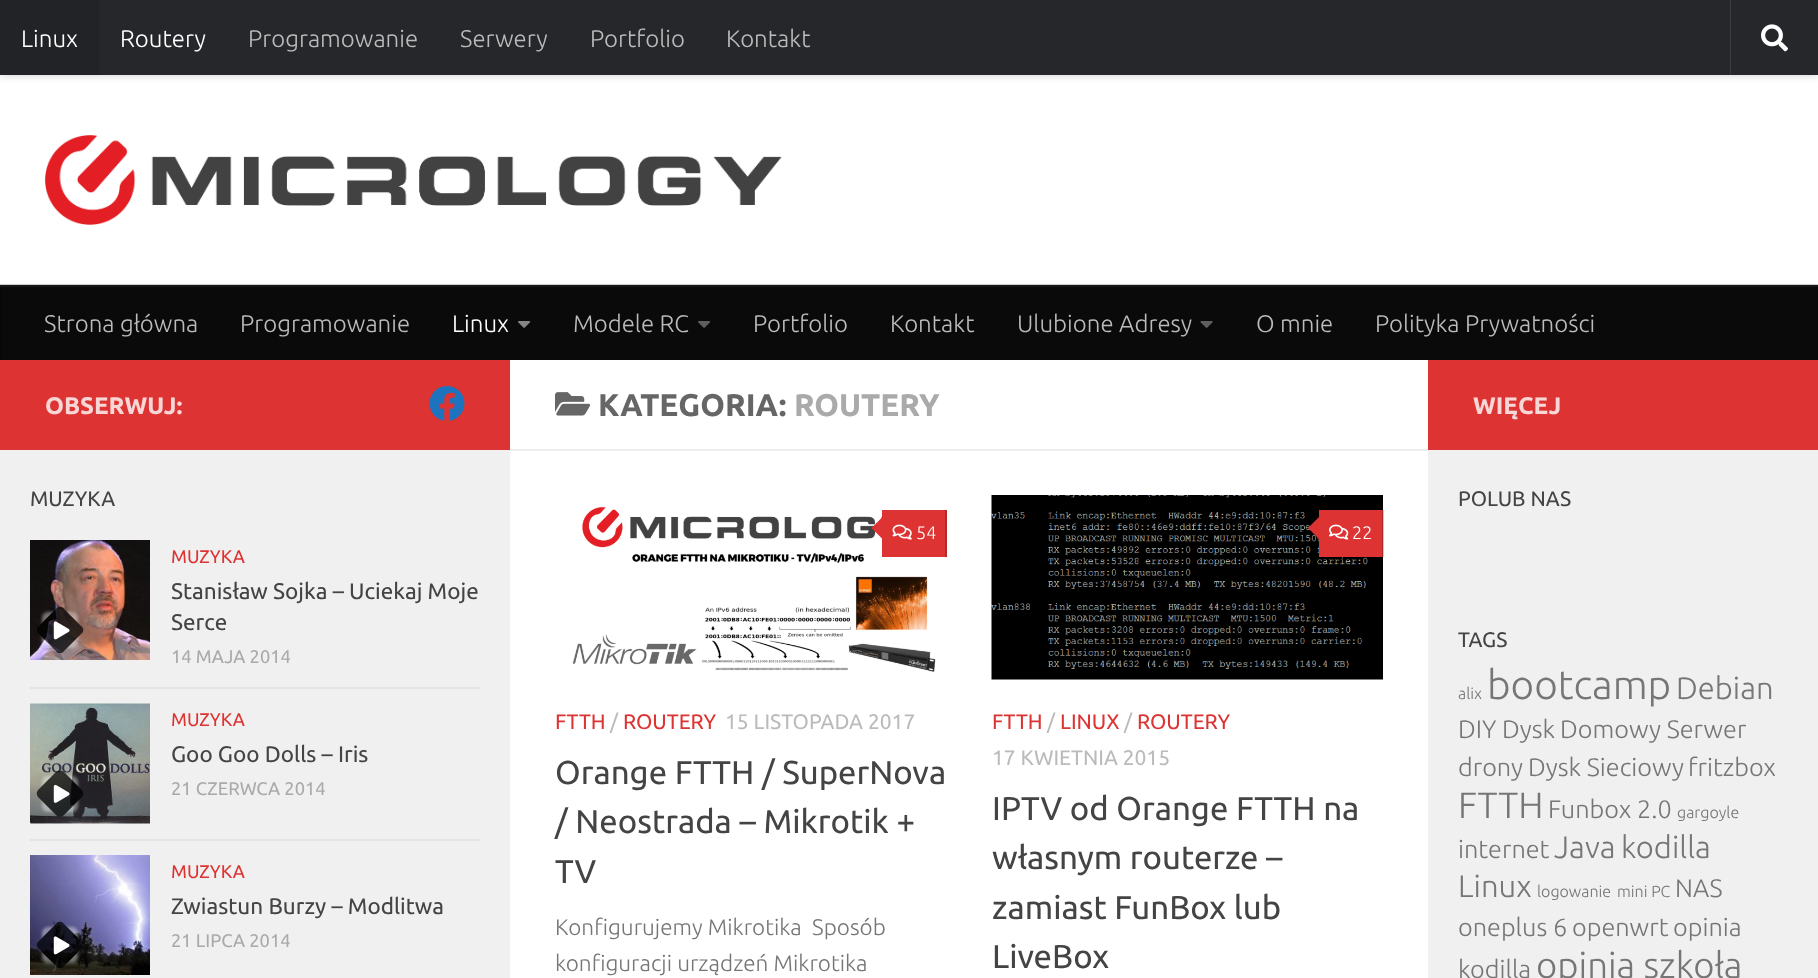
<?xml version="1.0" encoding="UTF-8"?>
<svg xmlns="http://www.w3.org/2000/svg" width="1818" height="978">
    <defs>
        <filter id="blur1" x="-50%" y="-200%" width="200%" height="500%"><feGaussianBlur stdDeviation="4"/></filter>
        <clipPath id="clip1"><path d="M 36 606 H 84 V 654 H 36 Z M 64 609 L 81 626 C 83.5 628 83.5 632 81 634 L 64 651 C 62 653.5 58 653.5 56 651 L 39 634 C 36.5 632 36.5 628 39 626 L 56 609 C 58 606.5 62 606.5 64 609 Z" clip-rule="evenodd"/></clipPath>
        <filter id="blur2" x="-50%" y="-200%" width="200%" height="500%"><feGaussianBlur stdDeviation="1.5"/></filter>
        <clipPath id="clip2"><path d="M 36 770 H 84 V 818 H 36 Z M 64 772.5 L 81 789.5 C 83.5 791.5 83.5 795.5 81 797.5 L 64 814.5 C 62 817 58 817 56 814.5 L 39 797.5 C 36.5 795.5 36.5 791.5 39 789.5 L 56 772.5 C 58 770 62 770 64 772.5 Z" clip-rule="evenodd"/></clipPath>
        <clipPath id="clip3"><path d="M 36 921 H 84 V 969 H 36 Z M 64 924 L 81 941 C 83.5 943 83.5 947 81 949 L 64 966 C 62 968.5 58 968.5 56 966 L 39 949 C 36.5 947 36.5 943 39 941 L 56 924 C 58 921.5 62 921.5 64 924 Z" clip-rule="evenodd"/></clipPath>
    </defs>
    <rect width="100%" height="100%" fill="#FFFFFF"/>
    <rect x="0" y="0" width="1818" height="75" fill="#000000" fill-opacity="0.2" filter="url(#blur1)"/>
    <rect x="99" y="0" width="1719" height="75" fill="#26272B"/>
    <rect x="0" y="0" width="99" height="75" fill="#222327"/>
    <text x="21" y="47" font-family="Ubuntu" font-size="24" font-weight="300" fill="#FFFFFF">Linux</text>
    <text x="120" y="47" font-family="Ubuntu" font-size="24" font-weight="300" fill="#FFFFFF">Routery</text>
    <text x="248" y="47" font-family="Ubuntu" font-size="24" font-weight="300" fill="#BBBBBB">Programowanie</text>
    <text x="460" y="47" font-family="Ubuntu" font-size="24" font-weight="300" fill="#BBBBBB">Serwery</text>
    <text x="590" y="47" font-family="Ubuntu" font-size="24" font-weight="300" fill="#BBBBBB">Portfolio</text>
    <text x="726" y="47" font-family="Ubuntu" font-size="24" font-weight="300" fill="#BBBBBB">Kontakt</text>
    <rect x="1730" y="0" width="1" height="75" fill="#3C3D40"/>
    <image x="1761" y="24" width="27" height="28" href="img_01.png"/>
    <image x="45" y="135" width="737" height="90" href="img_02.png"/>
    <rect x="0" y="284" width="1818" height="1" fill="#CCCCCC"/>
    <rect x="2" y="287" width="1815" height="73" fill="#0A0A0A"/>
    <rect x="1817" y="285" width="1" height="75" fill="#080808"/>
    <rect x="0" y="285" width="2" height="75" fill="#080808"/>
    <rect x="0" y="285" width="1818" height="2" fill="#161616"/>
    <text x="44" y="332" font-family="Ubuntu" font-size="24" font-weight="300" fill="#BBBBBB">Strona główna</text>
    <text x="240" y="332" font-family="Ubuntu" font-size="24" font-weight="300" fill="#BBBBBB">Programowanie</text>
    <text x="452" y="332" font-family="Ubuntu" font-size="24" font-weight="300" fill="#FFFFFF">Linux</text>
    <image x="518" y="321" width="13" height="7" href="img_03.png"/>
    <text x="573" y="332" font-family="Ubuntu" font-size="24" font-weight="300" fill="#BBBBBB">Modele RC</text>
    <image x="698" y="321" width="13" height="7" href="img_04.png"/>
    <text x="753" y="332" font-family="Ubuntu" font-size="24" font-weight="300" fill="#BBBBBB">Portfolio</text>
    <text x="890" y="332" font-family="Ubuntu" font-size="24" font-weight="300" fill="#BBBBBB">Kontakt</text>
    <text x="1017" y="332" font-family="Ubuntu" font-size="24" font-weight="300" fill="#BBBBBB">Ulubione Adresy</text>
    <image x="1200" y="321" width="13" height="7" href="img_05.png"/>
    <text x="1256" y="332" font-family="Ubuntu" font-size="24" font-weight="300" fill="#BBBBBB">O mnie</text>
    <text x="1375" y="332" font-family="Ubuntu" font-size="24" font-weight="300" fill="#BBBBBB">Polityka Prywatności</text>
    <rect x="0" y="360" width="510" height="90" fill="#DD3333"/>
    <text x="45" y="414" font-family="Ubuntu" font-size="24" font-weight="700" fill="#F8D6D6">OBSERWUJ:</text>
    <image x="429" y="386" width="36" height="35" href="img_06.png"/>
    <rect x="0" y="450" width="510" height="528" fill="#F0F0F0"/>
    <text x="30" y="506" font-family="Ubuntu" font-size="21" fill="#444444">MUZYKA</text>
    <rect x="30" y="687" width="450" height="2" fill="#E4E4E4"/>
    <image x="30" y="540" width="120" height="120" href="img_07.png"/>
    <g clip-path="url(#clip1)">
        <rect x="42" y="612" width="36" height="36" rx="6" fill="#FFFFFF" fill-opacity="0.4" filter="url(#blur2)"/>
    </g>
    <path d="M 64 609 L 81 626 C 84 628 84 632 81 634 L 64 651 C 62 654 58 654 56 651 L 39 634 C 36 632 36 628 39 626 L 56 609 C 58 606 62 606 64 609 Z" fill="#000000" fill-opacity="0.7"/>
    <image x="53" y="621" width="17" height="19" href="img_08.png"/>
    <text x="171" y="563" font-family="Ubuntu" font-size="18.25" fill="#DD3333">MUZYKA</text>
    <text font-family="Ubuntu" font-size="22.5" fill="#444444">
        <tspan x="171" y="599">Stanisław Sojka – Uciekaj Moje</tspan>
        <tspan x="171" y="630">Serce</tspan>
    </text>
    <text x="171" y="663" font-family="Ubuntu" font-size="18.25" fill="#AAAAAA">14 MAJA 2014</text>
    <rect x="30" y="839" width="450" height="2" fill="#E4E4E4"/>
    <image x="30" y="703" width="120" height="121" href="img_09.png"/>
    <g clip-path="url(#clip2)">
        <rect x="42" y="776" width="36" height="36" rx="6" fill="#FFFFFF" fill-opacity="0.4" filter="url(#blur2)"/>
    </g>
    <path d="M 64 772 L 81 789 C 84 792 84 795 81 798 L 64 815 C 62 817 58 817 56 815 L 39 798 C 36 795 36 792 39 789 L 56 772 C 58 770 62 770 64 772 Z" fill="#000000" fill-opacity="0.7"/>
    <image x="53" y="784" width="17" height="19" href="img_10.png"/>
    <text x="171" y="726" font-family="Ubuntu" font-size="18.25" fill="#DD3333">MUZYKA</text>
    <text x="171" y="762" font-family="Ubuntu" font-size="22.5" fill="#444444">Goo Goo Dolls – Iris</text>
    <text x="171" y="795" font-family="Ubuntu" font-size="18.25" fill="#AAAAAA">21 CZERWCA 2014</text>
    <image x="30" y="855" width="120" height="120" href="img_11.png"/>
    <g clip-path="url(#clip3)">
        <rect x="42" y="927" width="36" height="36" rx="6" fill="#FFFFFF" fill-opacity="0.4" filter="url(#blur2)"/>
    </g>
    <path d="M 64 924 L 81 941 C 84 943 84 947 81 949 L 64 966 C 62 969 58 969 56 966 L 39 949 C 36 947 36 943 39 941 L 56 924 C 58 921 62 921 64 924 Z" fill="#000000" fill-opacity="0.7"/>
    <image x="53" y="936" width="17" height="19" href="img_12.png"/>
    <text x="171" y="878" font-family="Ubuntu" font-size="18.25" fill="#DD3333">MUZYKA</text>
    <text x="171" y="914" font-family="Ubuntu" font-size="22.5" fill="#444444">Zwiastun Burzy – Modlitwa</text>
    <text x="171" y="947" font-family="Ubuntu" font-size="18.25" fill="#AAAAAA">21 LIPCA 2014</text>
    <rect x="510" y="449" width="918" height="2" fill="#EEEEEE"/>
    <image x="555" y="392" width="36" height="24" href="img_13.png"/>
    <text x="598" y="416" font-family="Ubuntu" font-size="31.25" font-weight="700" fill="#666666">KATEGORIA:</text>
    <text x="794" y="416" font-family="Ubuntu" font-size="31.25" font-weight="700" fill="#AAAAAA">ROUTERY</text>
    <image x="572" y="507" width="364" height="165" href="img_14.png"/>
    <rect x="882" y="510" width="63" height="47" fill="#DD3333"/>
    <rect x="945" y="510" width="2" height="47" fill="#B12929"/>
    <path d="M 885 514.5 V 541.5 L 871.5 528 Z" fill="#DD3333"/>
    <image x="892" y="524" width="20" height="16" href="img_15.png"/>
    <text x="916" y="539" font-family="Ubuntu" font-size="18" font-weight="300" fill="#FFFFFF">54</text>
    <text x="555" y="729" font-family="Ubuntu" font-size="21" fill="#DD3333">FTTH</text>
    <text x="610" y="729" font-family="Ubuntu" font-size="21" fill="#BBBBBB">/</text>
    <text x="623" y="729" font-family="Ubuntu" font-size="21" fill="#DD3333">ROUTERY</text>
    <text x="725" y="729" font-family="Ubuntu" font-size="21" fill="#BBBBBB">15 LISTOPADA 2017</text>
    <text font-family="Ubuntu" font-size="33" fill="#444444">
        <tspan x="555" y="784">Orange FTTH / SuperNova</tspan>
        <tspan x="555" y="833">/ Neostrada – Mikrotik +</tspan>
        <tspan x="555" y="883">TV</tspan>
    </text>
    <text font-family="Ubuntu" font-size="22.5" font-weight="300" fill="#767676" xml:space="preserve"><tspan x="555" y="935">Konfigurujemy Mikrotika  Sposób</tspan><tspan x="555" y="971">konfiguracji urządzeń Mikrotika</tspan></text>
    <image x="991" y="495" width="392" height="185" href="img_16.png"/>
    <rect x="1319" y="510" width="64" height="47" fill="#DD3333"/>
    <rect x="1382" y="510" width="2" height="47" fill="#000000" fill-opacity="0.2"/>
    <path d="M 1321.5 514.5 V 541.5 L 1308 528 Z" fill="#DD3333"/>
    <image x="1329" y="524" width="20" height="16" href="img_17.png"/>
    <text x="1352" y="539" font-family="Ubuntu" font-size="18" font-weight="300" fill="#FFFFFF">22</text>
    <text x="992" y="729" font-family="Ubuntu" font-size="21" fill="#DD3333">FTTH</text>
    <text x="1047" y="729" font-family="Ubuntu" font-size="21" fill="#BBBBBB">/</text>
    <text x="1060" y="729" font-family="Ubuntu" font-size="21" fill="#DD3333">LINUX</text>
    <text x="1124" y="729" font-family="Ubuntu" font-size="21" fill="#BBBBBB">/</text>
    <text x="1137" y="729" font-family="Ubuntu" font-size="21" fill="#DD3333">ROUTERY</text>
    <text x="992" y="765" font-family="Ubuntu" font-size="21" fill="#BBBBBB">17 KWIETNIA 2015</text>
    <text font-family="Ubuntu" font-size="33" fill="#444444">
        <tspan x="992" y="820">IPTV od Orange FTTH na</tspan>
        <tspan x="992" y="869">własnym routerze –</tspan>
        <tspan x="992" y="919">zamiast FunBox lub</tspan>
        <tspan x="992" y="968">LiveBox</tspan>
    </text>
    <rect x="1428" y="450" width="390" height="528" fill="#F0F0F0"/>
    <rect x="1428" y="360" width="390" height="90" fill="#DD3333"/>
    <text x="1473" y="414" font-family="Ubuntu" font-size="24" font-weight="700" fill="#F8D6D6">WIĘCEJ</text>
    <text x="1458" y="506" font-family="Ubuntu" font-size="21" fill="#444444">POLUB NAS</text>
    <text x="1458" y="647" font-family="Ubuntu" font-size="21" fill="#444444">TAGS</text>
    <text x="1458" y="699" font-family="Ubuntu" font-size="16" font-weight="300" fill="#767676">alix</text>
    <text x="1487" y="699" font-family="Ubuntu" font-size="40.5" font-weight="300" fill="#767676">bootcamp</text>
    <text x="1676" y="699" font-family="Ubuntu" font-size="31" font-weight="300" fill="#767676">Debian</text>
    <text x="1458" y="738" font-family="Ubuntu" font-size="25.25" font-weight="300" fill="#767676">DIY Dysk</text>
    <text x="1560" y="738" font-family="Ubuntu" font-size="25.25" font-weight="300" fill="#767676">Domowy Serwer</text>
    <text x="1458" y="776" font-family="Ubuntu" font-size="25.25" font-weight="300" fill="#767676">drony</text>
    <text x="1528" y="776" font-family="Ubuntu" font-size="25.25" font-weight="300" fill="#767676">Dysk Sieciowy</text>
    <text x="1688" y="776" font-family="Ubuntu" font-size="25.25" font-weight="300" fill="#767676">fritzbox</text>
    <text x="1458" y="818" font-family="Ubuntu" font-size="36.5" font-weight="300" fill="#767676">FTTH</text>
    <text x="1548" y="818" font-family="Ubuntu" font-size="25.25" font-weight="300" fill="#767676">Funbox 2.0</text>
    <text x="1677" y="818" font-family="Ubuntu" font-size="16" font-weight="300" fill="#767676">gargoyle</text>
    <text x="1458" y="858" font-family="Ubuntu" font-size="25.25" font-weight="300" fill="#767676">internet</text>
    <text x="1554" y="858" font-family="Ubuntu" font-size="31" font-weight="300" fill="#767676">Java</text>
    <text x="1621" y="858" font-family="Ubuntu" font-size="31" font-weight="300" fill="#767676">kodilla</text>
    <text x="1458" y="897" font-family="Ubuntu" font-size="31" font-weight="300" fill="#767676">Linux</text>
    <text x="1537" y="897" font-family="Ubuntu" font-size="16" font-weight="300" fill="#767676">logowanie</text>
    <text x="1617" y="897" font-family="Ubuntu" font-size="16" font-weight="300" fill="#767676">mini PC</text>
    <text x="1675" y="897" font-family="Ubuntu" font-size="25.25" font-weight="300" fill="#767676">NAS</text>
    <text x="1458" y="936" font-family="Ubuntu" font-size="25.25" font-weight="300" fill="#767676">oneplus 6</text>
    <text x="1572" y="936" font-family="Ubuntu" font-size="25.25" font-weight="300" fill="#767676">openwrt</text>
    <text x="1673" y="936" font-family="Ubuntu" font-size="25.25" font-weight="300" fill="#767676">opinia</text>
    <text x="1458" y="978" font-family="Ubuntu" font-size="25.25" font-weight="300" fill="#767676">kodilla</text>
    <text x="1536" y="978" font-family="Ubuntu" font-size="36.5" font-weight="300" fill="#767676">opinia szkoła</text>
</svg>
